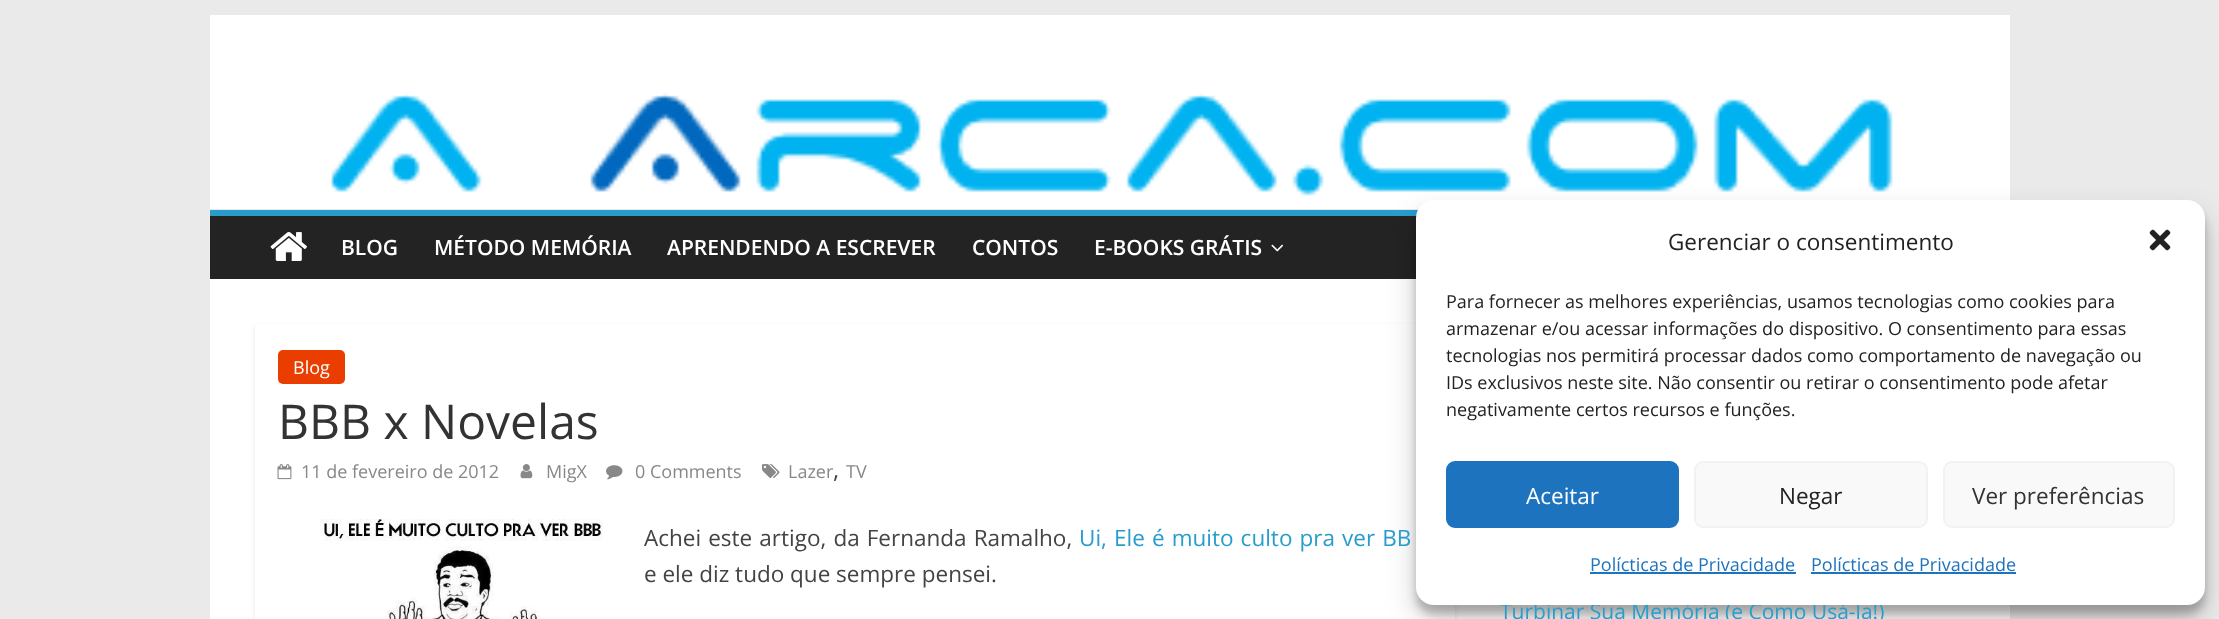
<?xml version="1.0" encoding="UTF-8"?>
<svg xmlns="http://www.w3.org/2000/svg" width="2219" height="619">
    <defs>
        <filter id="blur1" x="-50%" y="-200%" width="200%" height="500%"><feGaussianBlur stdDeviation="4.5"/></filter>
        <filter id="blur2" x="-50%" y="-200%" width="200%" height="500%"><feGaussianBlur stdDeviation="15"/></filter>
        <clipPath id="clip1"><path d="M 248 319 H 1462 V 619 H 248 Z M 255 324 H 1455 V 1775 H 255 Z" clip-rule="evenodd"/></clipPath>
        <filter id="blur3" x="-50%" y="-200%" width="200%" height="500%"><feGaussianBlur stdDeviation="2"/></filter>
    </defs>
    <rect width="100%" height="100%" fill="#EAEAEA"/>
    <rect x="210" y="15" width="1800" height="194" fill="#FFFFFF"/>
    <image x="329" y="92" width="1564" height="104" href="img_02.png"/>
    <rect x="210" y="216" width="1207" height="63" fill="#232323"/>
    <rect x="210" y="210" width="1208" height="6" fill="#289DCC"/>
    <rect x="210" y="279" width="1800" height="340" fill="#FFFFFF"/>
    <rect x="1416" y="209" width="789" height="405" rx="18" fill="#000000" fill-opacity="0.23" filter="url(#blur1)"/>
    <rect x="1416" y="215" width="789" height="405" rx="18" fill="#000000" fill-opacity="0.19" filter="url(#blur2)"/>
    <g clip-path="url(#clip1)">
        <rect x="255" y="326" width="1200" height="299" fill="#000000" fill-opacity="0.1" filter="url(#blur3)"/>
    </g>
    <text x="1500" y="619" font-family="Open Sans" font-size="21" fill="#289DCC">Turbinar Sua Memória (e Como Usá-la!)</text>
    <rect x="1416" y="200" width="789" height="405" rx="18" fill="#FFFFFF"/>
    <text x="1668" y="250" font-family="Open Sans" font-size="22.5" fill="#222222">Gerenciar o consentimento</text>
    <image x="2149" y="229" width="22" height="22" href="img_01.png"/>
    <text font-family="Open Sans" font-size="18" fill="#222222">
        <tspan x="1446" y="308">Para fornecer as melhores experiências, usamos tecnologias como cookies para</tspan>
        <tspan x="1446" y="335">armazenar e/ou acessar informações do dispositivo. O consentimento para essas</tspan>
        <tspan x="1446" y="362">tecnologias nos permitirá processar dados como comportamento de navegação ou</tspan>
        <tspan x="1446" y="389">IDs exclusivos neste site. Não consentir ou retirar o consentimento pode afetar</tspan>
        <tspan x="1446" y="416">negativamente certos recursos e funções.</tspan>
    </text>
    <rect x="1447" y="462" width="231" height="65" rx="8" fill="#1E73BE" stroke="#1E73BE" stroke-width="2"/>
    <text x="1526" y="504" font-family="Open Sans" font-size="22.5" fill="#FFFFFF">Aceitar</text>
    <rect x="1695" y="462" width="232" height="65" rx="8" fill="#F9F9F9" stroke="#F2F2F2" stroke-width="2"/>
    <text x="1779" y="504" font-family="Open Sans" font-size="22.5" fill="#222222">Negar</text>
    <rect x="1944" y="462" width="230" height="65" rx="8" fill="#F9F9F9" stroke="#F2F2F2" stroke-width="2"/>
    <text x="1972" y="504" font-family="Open Sans" font-size="22.5" fill="#333333">Ver preferências</text>
    <text x="1590" y="571" font-family="Open Sans" font-size="18" fill="#1E73BE">Polícticas de Privacidade</text>
    <rect x="1590" y="572" width="206" height="2" fill="#1E73BE"/>
    <text x="1811" y="571" font-family="Open Sans" font-size="18" fill="#1E73BE">Polícticas de Privacidade</text>
    <rect x="1811" y="572" width="205" height="2" fill="#1E73BE"/>
    <image x="270" y="232" width="37" height="29" href="img_03.png"/>
    <text x="341" y="255" font-family="Open Sans" font-size="21" font-weight="600" fill="#FFFFFF">BLOG</text>
    <text x="434" y="255" font-family="Open Sans" font-size="21" font-weight="600" fill="#FFFFFF">MÉTODO MEMÓRIA</text>
    <text x="667" y="255" font-family="Open Sans" font-size="21" font-weight="600" fill="#FFFFFF">APRENDENDO A ESCREVER</text>
    <text x="972" y="255" font-family="Open Sans" font-size="21" font-weight="600" fill="#FFFFFF">CONTOS</text>
    <text x="1094" y="255" font-family="Open Sans" font-size="21" font-weight="600" fill="#FFFFFF">E-BOOKS GRÁTIS</text>
    <image x="1271" y="244" width="13" height="8" href="img_04.png"/>
    <rect x="278" y="350" width="67" height="34" rx="5" fill="#EA3E00"/>
    <text x="293" y="374" font-family="Open Sans" font-size="18" fill="#FFFFFF">Blog</text>
    <text x="278" y="439" font-family="Open Sans" font-size="48" fill="#333333">BBB x Novelas</text>
    <image x="277" y="464" width="15" height="16" href="img_05.png"/>
    <text x="301" y="478" font-family="Open Sans" font-size="18" fill="#888888">11 de fevereiro de 2012</text>
    <image x="520" y="464" width="13" height="15" href="img_06.png"/>
    <text x="546" y="478" font-family="Open Sans" font-size="18" fill="#888888">MigX</text>
    <image x="606" y="465" width="17" height="15" href="img_07.png"/>
    <text x="635" y="478" font-family="Open Sans" font-size="18" fill="#888888">0 Comments</text>
    <image x="762" y="464" width="18" height="14" href="img_08.png"/>
    <text x="788" y="478" font-family="Open Sans" font-size="18" fill="#888888">Lazer</text>
    <text x="833" y="478" font-family="Open Sans" font-size="24" fill="#444444">,</text>
    <text x="846" y="478" font-family="Open Sans" font-size="18" fill="#888888">TV</text>
    <image x="320" y="519" width="283" height="100" href="img_09.png"/>
    <text x="644" y="546" word-spacing="1.25" font-family="Open Sans" font-size="22.5" fill="#444444">Achei este artigo, da Fernanda Ramalho,</text>
    <text x="1079" y="546" word-spacing="1.25" font-family="Open Sans" font-size="22.5" fill="#289DCC">Ui, Ele é muito culto pra ver BB</text>
    <text x="644" y="582" font-family="Open Sans" font-size="22.5" fill="#444444">e ele diz tudo que sempre pensei.</text>
</svg>
